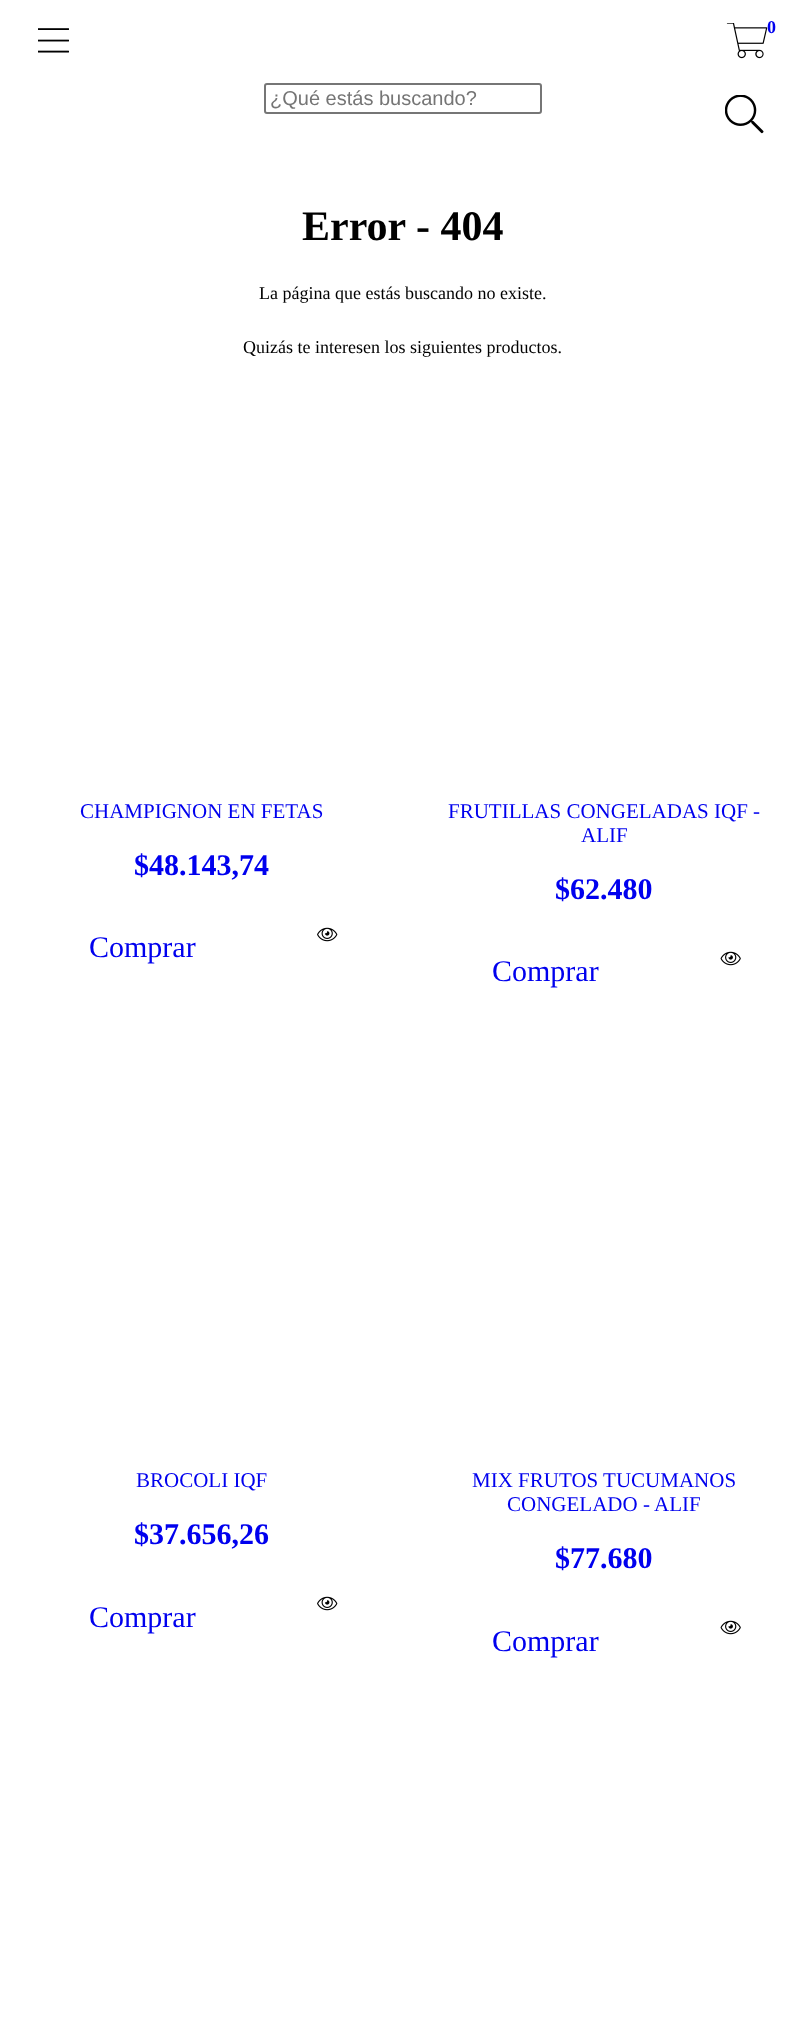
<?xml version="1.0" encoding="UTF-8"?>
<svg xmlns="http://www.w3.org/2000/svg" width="805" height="2023">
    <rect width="100%" height="100%" fill="#FFFFFF"/>
    <image x="38" y="28" width="31" height="25" href="img_01.png"/>
    <image x="726" y="23" width="42" height="36" href="img_02.png"/>
    <text x="767" y="33" font-family="Liberation Serif" font-size="18" font-weight="700" fill="#0000EE">0</text>
    <rect x="265" y="84" width="276" height="29" rx="2" fill="none" stroke="#767676" stroke-width="2"/>
    <text x="270" y="105" font-family="Liberation Sans" font-size="20" fill="#757575">¿Qué estás buscando?</text>
    <image x="725" y="95" width="39" height="39" href="img_03.png"/>
    <text x="302" y="240" font-family="Liberation Serif" font-size="42" font-weight="700" fill="#000000">Error - 404</text>
    <text x="259" y="299" font-family="Liberation Serif" font-size="18" fill="#000000">La página que estás buscando no existe.</text>
    <text x="243" y="353" font-family="Liberation Serif" font-size="18" fill="#000000">Quizás te interesen los siguientes productos.</text>
    <text x="80" y="818" font-family="Liberation Serif" font-size="21" fill="#0000EE">CHAMPIGNON EN FETAS</text>
    <text x="134" y="875" font-family="Liberation Serif" font-size="30" font-weight="700" fill="#0000EE">$48.143,74</text>
    <image x="317" y="927" width="21" height="15" href="img_04.png"/>
    <text x="89" y="957" font-family="Liberation Serif" font-size="30" fill="#0000EE">Comprar</text>
    <text x="448" y="818" font-family="Liberation Serif" font-size="21" fill="#0000EE">FRUTILLAS CONGELADAS IQF -</text>
    <text x="581" y="842" font-family="Liberation Serif" font-size="21" fill="#0000EE">ALIF</text>
    <text x="555" y="899" font-family="Liberation Serif" font-size="30" font-weight="700" fill="#0000EE">$62.480</text>
    <image x="720" y="951" width="21" height="15" href="img_05.png"/>
    <text x="492" y="981" font-family="Liberation Serif" font-size="30" fill="#0000EE">Comprar</text>
    <text x="136" y="1487" font-family="Liberation Serif" font-size="21" fill="#0000EE">BROCOLI IQF</text>
    <text x="134" y="1544" font-family="Liberation Serif" font-size="30" font-weight="700" fill="#0000EE">$37.656,26</text>
    <image x="317" y="1596" width="21" height="15" href="img_04.png"/>
    <text x="89" y="1627" font-family="Liberation Serif" font-size="30" fill="#0000EE">Comprar</text>
    <text x="472" y="1487" font-family="Liberation Serif" font-size="21" fill="#0000EE">MIX FRUTOS TUCUMANOS</text>
    <text x="507" y="1511" font-family="Liberation Serif" font-size="21" fill="#0000EE">CONGELADO - ALIF</text>
    <text x="555" y="1568" font-family="Liberation Serif" font-size="30" font-weight="700" fill="#0000EE">$77.680</text>
    <image x="720" y="1620" width="21" height="15" href="img_05.png"/>
    <text x="492" y="1651" font-family="Liberation Serif" font-size="30" fill="#0000EE">Comprar</text>
</svg>
